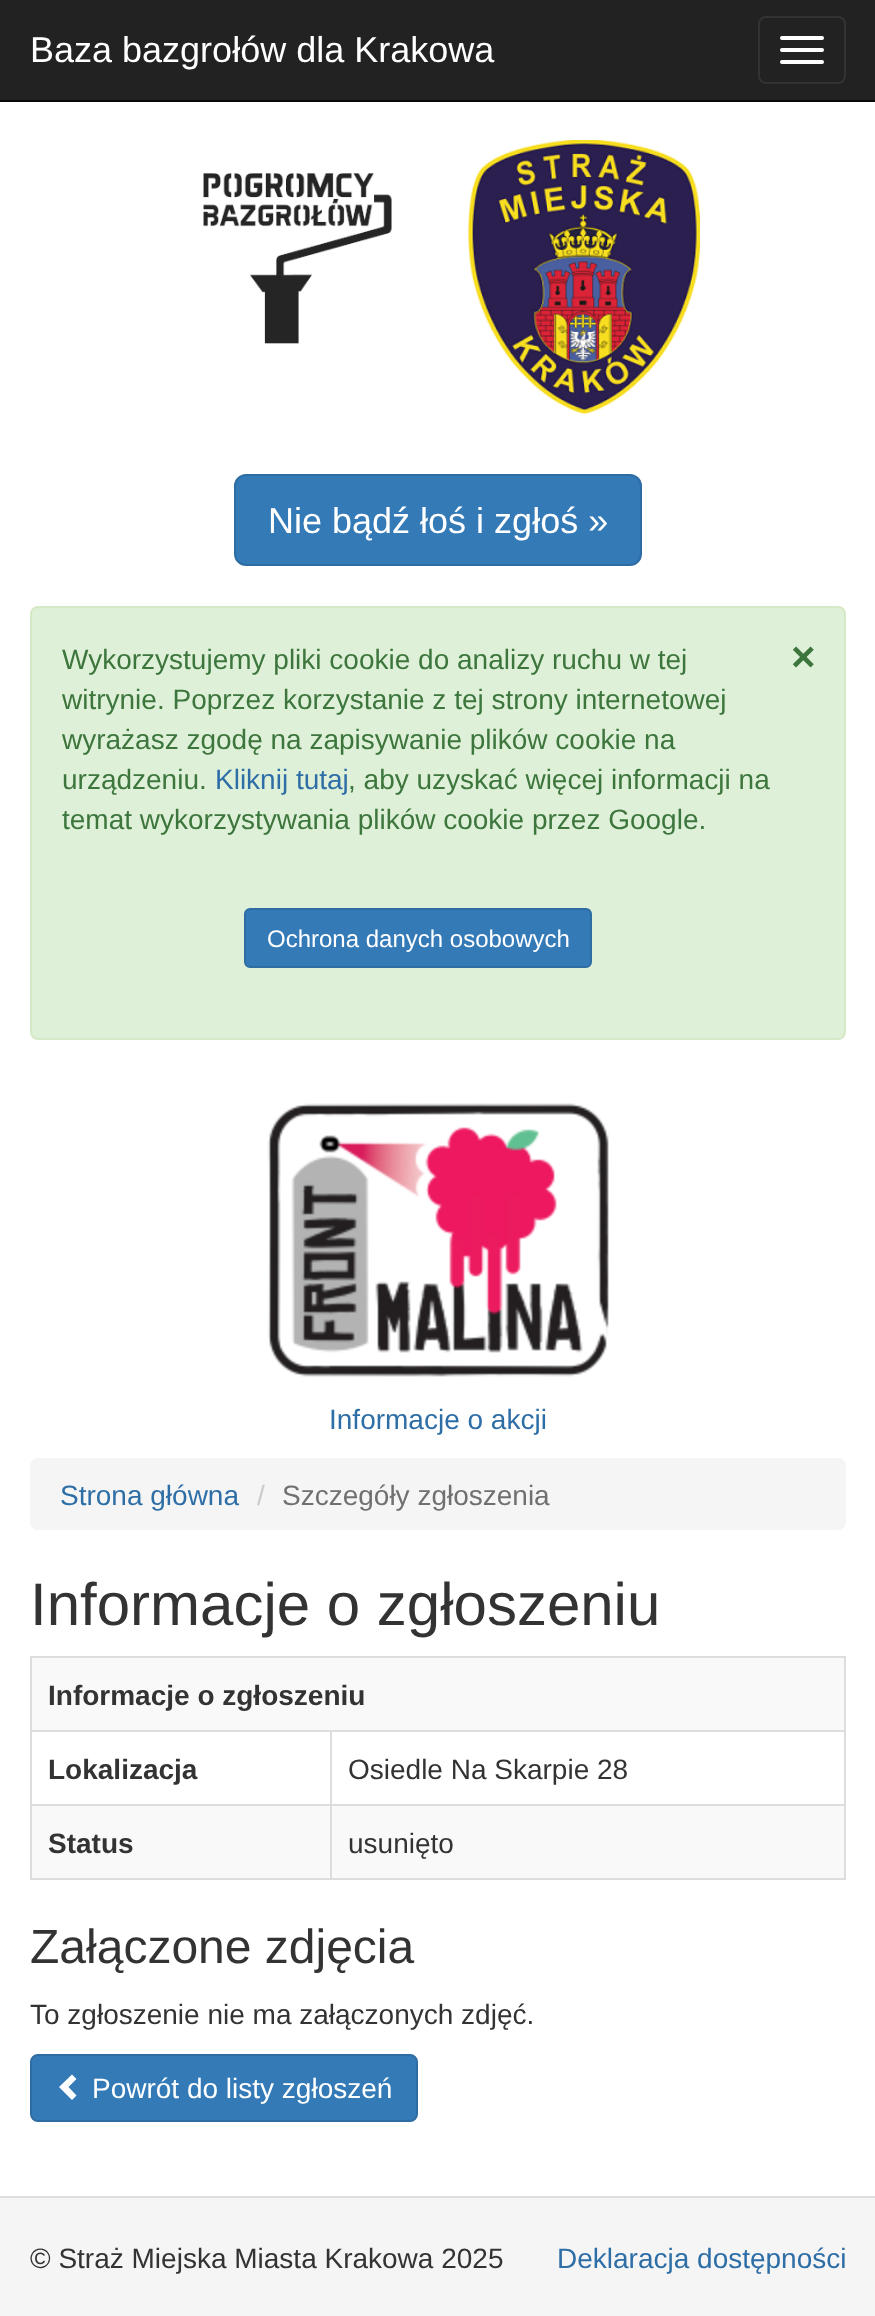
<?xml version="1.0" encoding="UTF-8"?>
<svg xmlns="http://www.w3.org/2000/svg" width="875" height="2316">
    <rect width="100%" height="100%" fill="#FFFFFF"/>
    <rect x="0" y="0" width="875" height="100" fill="#222222"/>
    <rect x="0" y="100" width="875" height="2" fill="#080808"/>
    <text x="30" y="62" font-family="Liberation Sans" font-size="36" fill="#FFFFFF">Baza bazgrołów dla Krakowa</text>
    <rect x="759" y="17" width="86" height="66" rx="7" fill="none" stroke="#333333" stroke-width="2"/>
    <rect x="780" y="36" width="44" height="4" rx="2" fill="#FFFFFF"/>
    <rect x="780" y="48" width="44" height="4" rx="2" fill="#FFFFFF"/>
    <rect x="780" y="60" width="44" height="4" rx="2" fill="#FFFFFF"/>
    <image x="203" y="173" width="189" height="171" href="img_01.png"/>
    <image x="468" y="140" width="232" height="274" href="img_02.png"/>
    <rect x="235" y="475" width="406" height="90" rx="11" fill="#337AB7" stroke="#2E6DA4" stroke-width="2"/>
    <text x="268" y="533" font-family="Liberation Sans" font-size="36" fill="#FFFFFF">Nie bądź łoś i zgłoś »</text>
    <rect x="31" y="607" width="814" height="432" rx="7" fill="#DFF0D8" stroke="#D6E9C6" stroke-width="2"/>
    <text font-family="Liberation Sans" font-size="28" fill="#3C763D">
        <tspan x="62" y="669">Wykorzystujemy pliki cookie do analizy ruchu w tej</tspan>
        <tspan x="62" y="709">witrynie. Poprzez korzystanie z tej strony internetowej</tspan>
        <tspan x="62" y="749">wyrażasz zgodę na zapisywanie plików cookie na</tspan>
        <tspan x="62" y="789">urządzeniu.</tspan>
    </text>
    <text x="215" y="789" font-family="Liberation Sans" font-size="28" fill="#2E6EA6">Kliknij tutaj</text>
    <text x="348" y="789" font-family="Liberation Sans" font-size="28" fill="#3C763D">, aby uzyskać więcej informacji na</text>
    <text x="62" y="829" font-family="Liberation Sans" font-size="28" fill="#3C763D">temat wykorzystywania plików cookie przez Google.</text>
    <text x="791" y="671" font-family="Liberation Sans" font-size="42" font-weight="700" fill="#3C763D">×</text>
    <rect x="245" y="909" width="346" height="58" rx="5" fill="#337AB7" stroke="#2E6DA4" stroke-width="2"/>
    <text x="267" y="947" font-family="Liberation Sans" font-size="24" fill="#FFFFFF">Ochrona danych osobowych</text>
    <image x="267" y="1103" width="342" height="274" href="img_03.png"/>
    <text x="329" y="1429" font-family="Liberation Sans" font-size="28" fill="#2E6EA6">Informacje o akcji</text>
    <rect x="30" y="1458" width="816" height="72" rx="8" fill="#F5F5F5"/>
    <text x="60" y="1505" font-family="Liberation Sans" font-size="28" fill="#2E6EA6">Strona główna</text>
    <text x="257" y="1505" font-family="Liberation Sans" font-size="28" fill="#CCCCCC">/</text>
    <text x="282" y="1505" font-family="Liberation Sans" font-size="28" fill="#707070">Szczegóły zgłoszenia</text>
    <text x="30" y="1625" font-family="Liberation Sans" font-size="60" fill="#333333">Informacje o zgłoszeniu</text>
    <rect x="30" y="1656" width="816" height="2" fill="#DDDDDD"/>
    <rect x="844" y="1656" width="2" height="224" fill="#DDDDDD"/>
    <rect x="30" y="1878" width="816" height="2" fill="#DDDDDD"/>
    <rect x="30" y="1656" width="2" height="224" fill="#DDDDDD"/>
    <rect x="32" y="1658" width="812" height="72" fill="#F9F9F9"/>
    <text x="48" y="1705" font-family="Liberation Sans" font-size="28" font-weight="700" fill="#333333">Informacje o zgłoszeniu</text>
    <rect x="330" y="1730" width="516" height="2" fill="#DDDDDD"/>
    <rect x="330" y="1804" width="516" height="2" fill="#DDDDDD"/>
    <rect x="32" y="1806" width="812" height="72" fill="#F9F9F9"/>
    <rect x="330" y="1804" width="2" height="76" fill="#DDDDDD"/>
    <rect x="30" y="1804" width="302" height="2" fill="#DDDDDD"/>
    <rect x="330" y="1730" width="2" height="76" fill="#DDDDDD"/>
    <rect x="30" y="1730" width="302" height="2" fill="#DDDDDD"/>
    <text x="48" y="1779" font-family="Liberation Sans" font-size="28" font-weight="700" fill="#333333">Lokalizacja</text>
    <text x="348" y="1779" font-family="Liberation Sans" font-size="28" fill="#333333">Osiedle Na Skarpie 28</text>
    <text x="48" y="1853" font-family="Liberation Sans" font-size="28" font-weight="700" fill="#333333">Status</text>
    <text x="348" y="1853" font-family="Liberation Sans" font-size="28" fill="#333333">usunięto</text>
    <text x="30" y="1963" font-family="Liberation Sans" font-size="48" fill="#333333">Załączone zdjęcia</text>
    <text x="30" y="2024" font-family="Liberation Sans" font-size="28" fill="#333333">To zgłoszenie nie ma załączonych zdjęć.</text>
    <rect x="31" y="2055" width="386" height="66" rx="7" fill="#337AB7" stroke="#2E6DA4" stroke-width="2"/>
    <path d="M 76.5 2079 L 68.5 2087 L 76.5 2095.5 L 72 2100 L 59 2087 L 72 2074.5 Z" fill="#FFFFFF"/>
    <text x="92" y="2098" font-family="Liberation Sans" font-size="28" fill="#FFFFFF">Powrót do listy zgłoszeń</text>
    <rect x="0" y="2198" width="875" height="118" fill="#F5F5F5"/>
    <rect x="0" y="2196" width="875" height="2" fill="#DDDDDD"/>
    <text x="30" y="2268" font-family="Liberation Sans" font-size="28" fill="#333333">© Straż Miejska Miasta Krakowa 2025</text>
    <text x="557" y="2268" font-family="Liberation Sans" font-size="28" fill="#2E6EA6">Deklaracja dostępności</text>
</svg>
